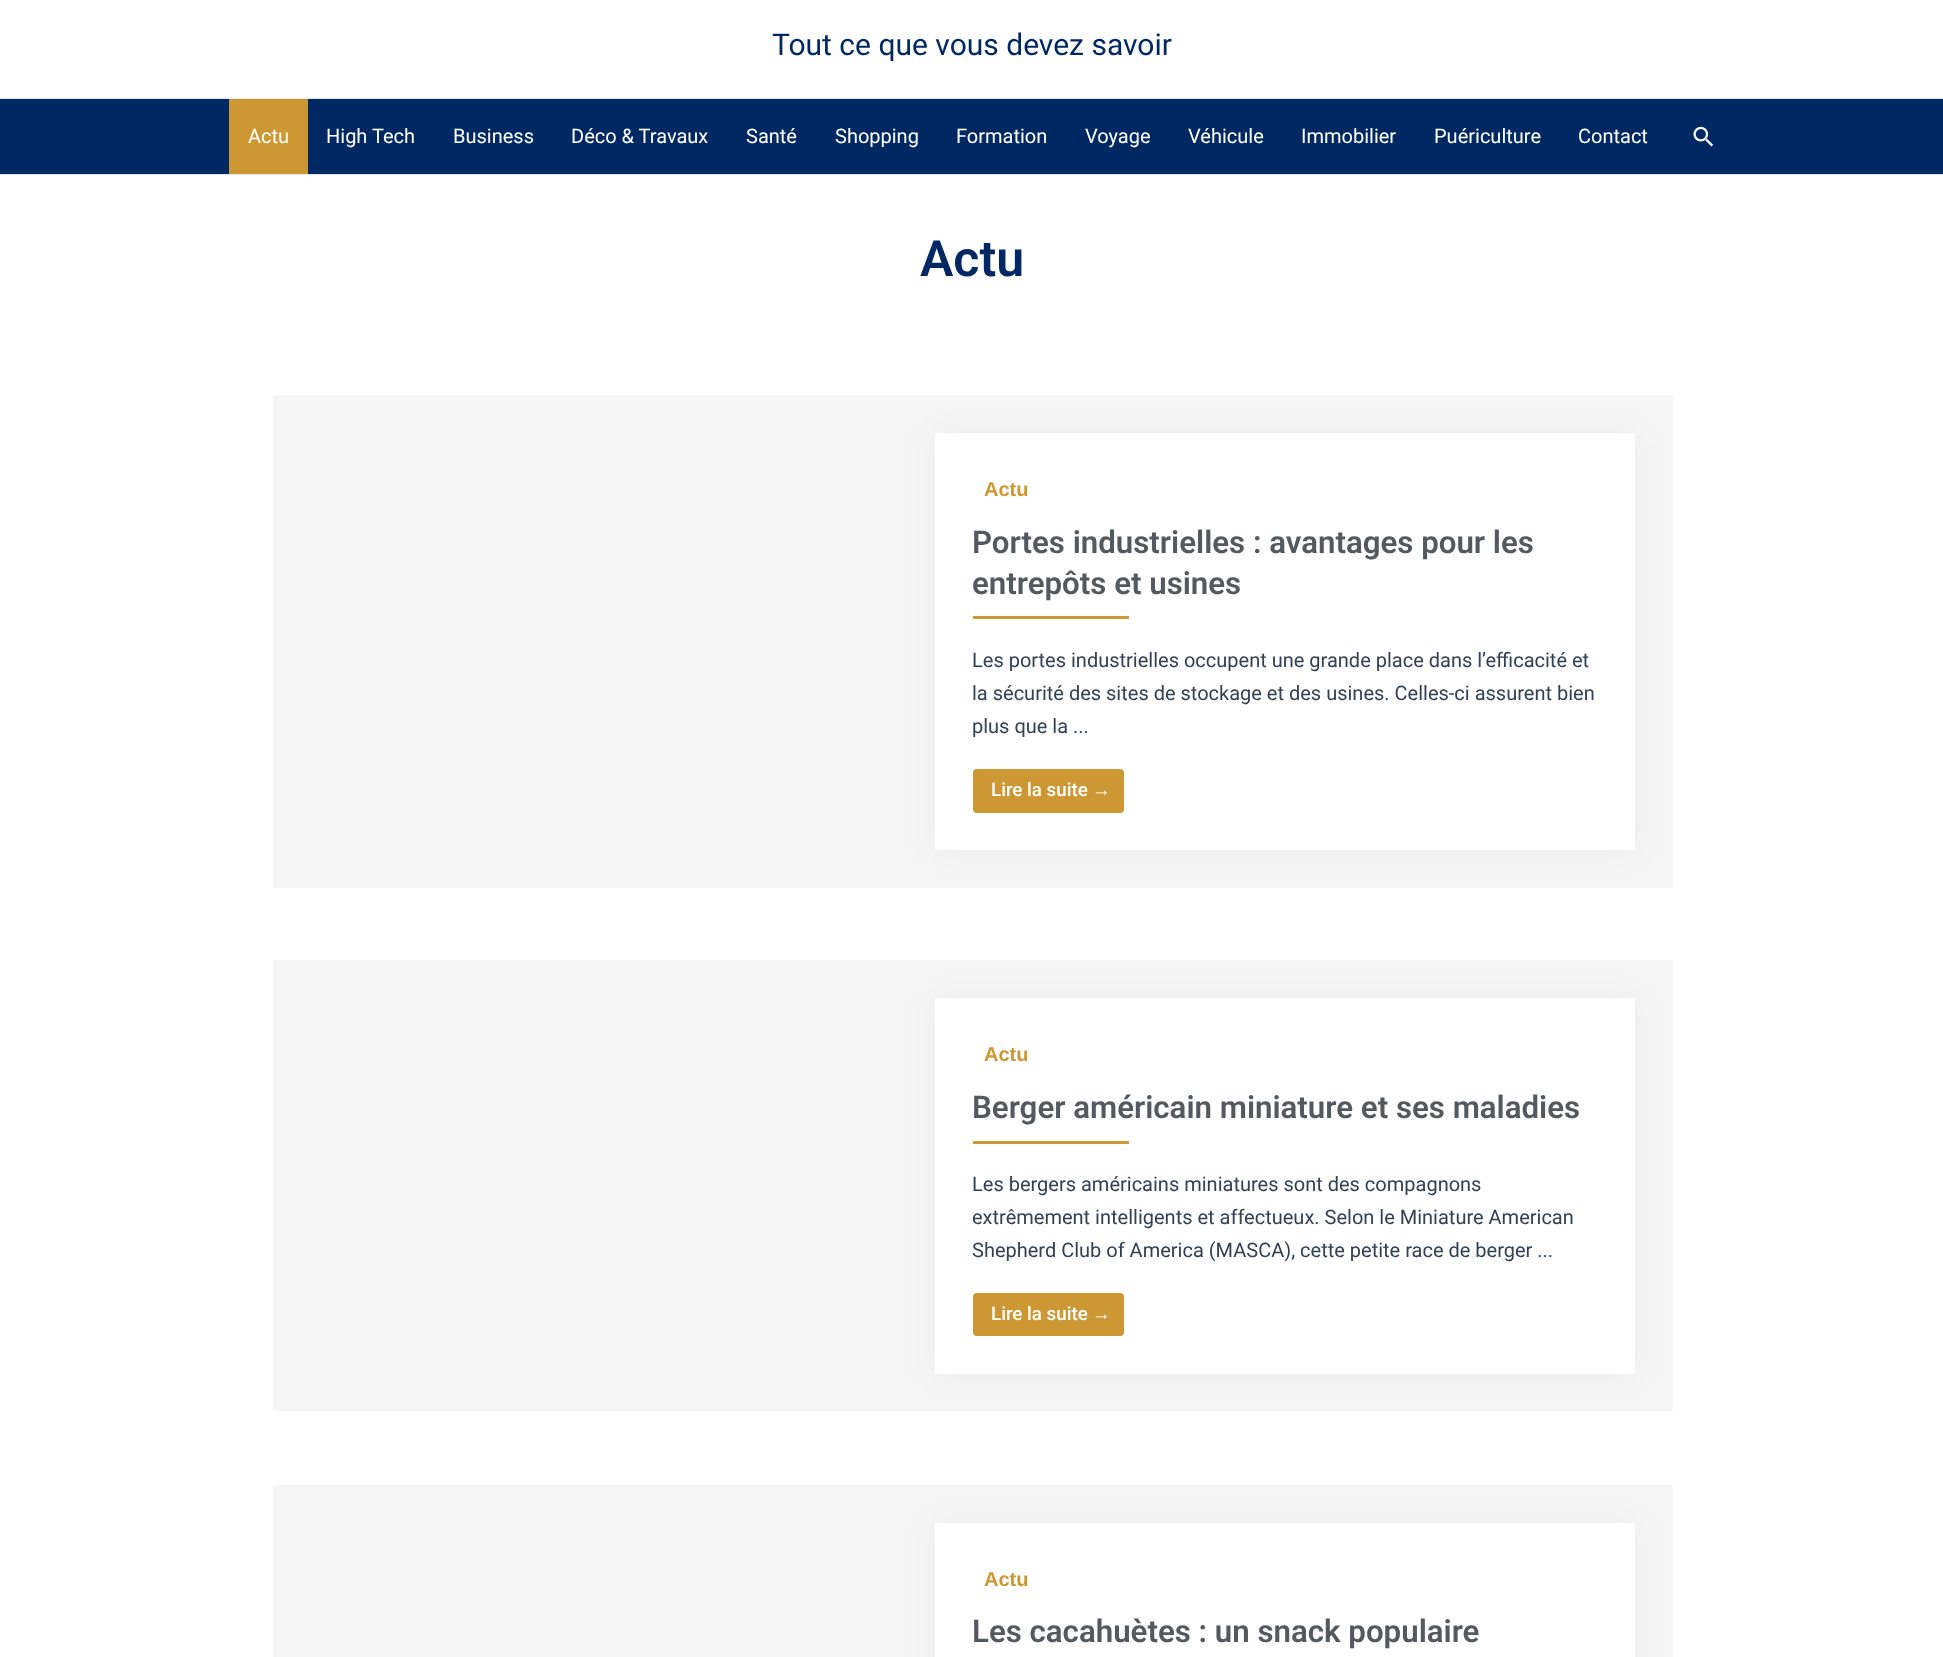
<?xml version="1.0" encoding="UTF-8"?>
<svg xmlns="http://www.w3.org/2000/svg" width="1943" height="1657">
    <defs>
        <filter id="blur1" x="-50%" y="-200%" width="200%" height="500%"><feGaussianBlur stdDeviation="15.5"/></filter>
    </defs>
    <rect width="100%" height="100%" fill="#FFFFFF"/>
    <rect x="0" y="98" width="1943" height="1" fill="#E2E8F0"/>
    <text x="772" y="55" font-family="Roboto" font-size="30" fill="#012863">Tout ce que vous devez savoir</text>
    <rect x="0" y="99" width="1943" height="75" fill="#002963"/>
    <rect x="0" y="174" width="1943" height="1" fill="#E2E8F0"/>
    <rect x="229" y="99" width="79" height="75" fill="#CD9833"/>
    <text x="248" y="143" font-family="Roboto" font-size="20" fill="#FFFFFF">Actu</text>
    <text x="326" y="143" font-family="Roboto" font-size="20" fill="#FFFFFF">High Tech</text>
    <text x="453" y="143" font-family="Roboto" font-size="20" fill="#FFFFFF">Business</text>
    <text x="571" y="143" font-family="Roboto" font-size="20" fill="#FFFFFF">Déco &amp; Travaux</text>
    <text x="746" y="143" font-family="Roboto" font-size="20" fill="#FFFFFF">Santé</text>
    <text x="835" y="143" font-family="Roboto" font-size="20" fill="#FFFFFF">Shopping</text>
    <text x="956" y="143" font-family="Roboto" font-size="20" fill="#FFFFFF">Formation</text>
    <text x="1085" y="143" font-family="Roboto" font-size="20" fill="#FFFFFF">Voyage</text>
    <text x="1188" y="143" font-family="Roboto" font-size="20" fill="#FFFFFF">Véhicule</text>
    <text x="1301" y="143" font-family="Roboto" font-size="20" fill="#FFFFFF">Immobilier</text>
    <text x="1434" y="143" font-family="Roboto" font-size="20" fill="#FFFFFF">Puériculture</text>
    <text x="1578" y="143" font-family="Roboto" font-size="20" fill="#FFFFFF">Contact</text>
    <image x="1693" y="126" width="20" height="21" href="img_01.png"/>
    <text x="920" y="276" font-family="Roboto" font-size="50" font-weight="600" fill="#012863">Actu</text>
    <rect x="273" y="395" width="1400" height="493" fill="#F6F6F6"/>
    <rect x="935" y="434" width="700" height="417" fill="#000000" fill-opacity="0.05" filter="url(#blur1)"/>
    <rect x="935" y="433" width="700" height="417" fill="#FFFFFF"/>
    <text x="984" y="496" font-family="Liberation Sans" font-size="20" font-weight="700" fill="#CD9833">Actu</text>
    <text font-family="Roboto" font-size="31.25" font-weight="600" fill="#54595F">
        <tspan x="972" y="553">Portes industrielles : avantages pour les</tspan>
        <tspan x="972" y="594">entrepôts et usines</tspan>
    </text>
    <rect x="973" y="616" width="156" height="3" fill="#CD9833"/>
    <text font-family="Roboto" font-size="20" fill="#334155">
        <tspan x="972" y="667">Les portes industrielles occupent une grande place dans l’efficacité et</tspan>
        <tspan x="972" y="700">la sécurité des sites de stockage et des usines. Celles-ci assurent bien</tspan>
        <tspan x="972" y="733">plus que la ...</tspan>
    </text>
    <rect x="973" y="769" width="151" height="44" rx="4" fill="#CD9833"/>
    <text x="991" y="796" font-family="Roboto" font-size="18.75" font-weight="500" fill="#FFFFFF">Lire la suite</text>
    <text x="1092" y="796" font-family="Liberation Sans" font-size="18.75" fill="#FFFFFF">→</text>
    <rect x="273" y="960" width="1400" height="451" fill="#F6F6F6"/>
    <rect x="935" y="999" width="700" height="376" fill="#000000" fill-opacity="0.05" filter="url(#blur1)"/>
    <rect x="935" y="998" width="700" height="376" fill="#FFFFFF"/>
    <text x="984" y="1061" font-family="Liberation Sans" font-size="20" font-weight="700" fill="#CD9833">Actu</text>
    <text x="972" y="1118" font-family="Roboto" font-size="31.25" font-weight="600" fill="#54595F">Berger américain miniature et ses maladies</text>
    <rect x="973" y="1141" width="156" height="3" fill="#CD9833"/>
    <text font-family="Roboto" font-size="20" fill="#334155">
        <tspan x="972" y="1191">Les bergers américains miniatures sont des compagnons</tspan>
        <tspan x="972" y="1224">extrêmement intelligents et affectueux. Selon le Miniature American</tspan>
        <tspan x="972" y="1257">Shepherd Club of America (MASCA), cette petite race de berger ...</tspan>
    </text>
    <rect x="973" y="1293" width="151" height="43" rx="4" fill="#CD9833"/>
    <text x="991" y="1320" font-family="Roboto" font-size="18.75" font-weight="500" fill="#FFFFFF">Lire la suite</text>
    <text x="1092" y="1320" font-family="Liberation Sans" font-size="18.75" fill="#FFFFFF">→</text>
    <rect x="273" y="1485" width="1400" height="172" fill="#F6F6F6"/>
    <rect x="935" y="1524" width="700" height="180" fill="#000000" fill-opacity="0.05" filter="url(#blur1)"/>
    <rect x="935" y="1523" width="700" height="134" fill="#FFFFFF"/>
    <text x="984" y="1586" font-family="Liberation Sans" font-size="20" font-weight="700" fill="#CD9833">Actu</text>
    <text x="972" y="1642" font-family="Roboto" font-size="31.25" font-weight="600" fill="#54595F">Les cacahuètes : un snack populaire</text>
</svg>
